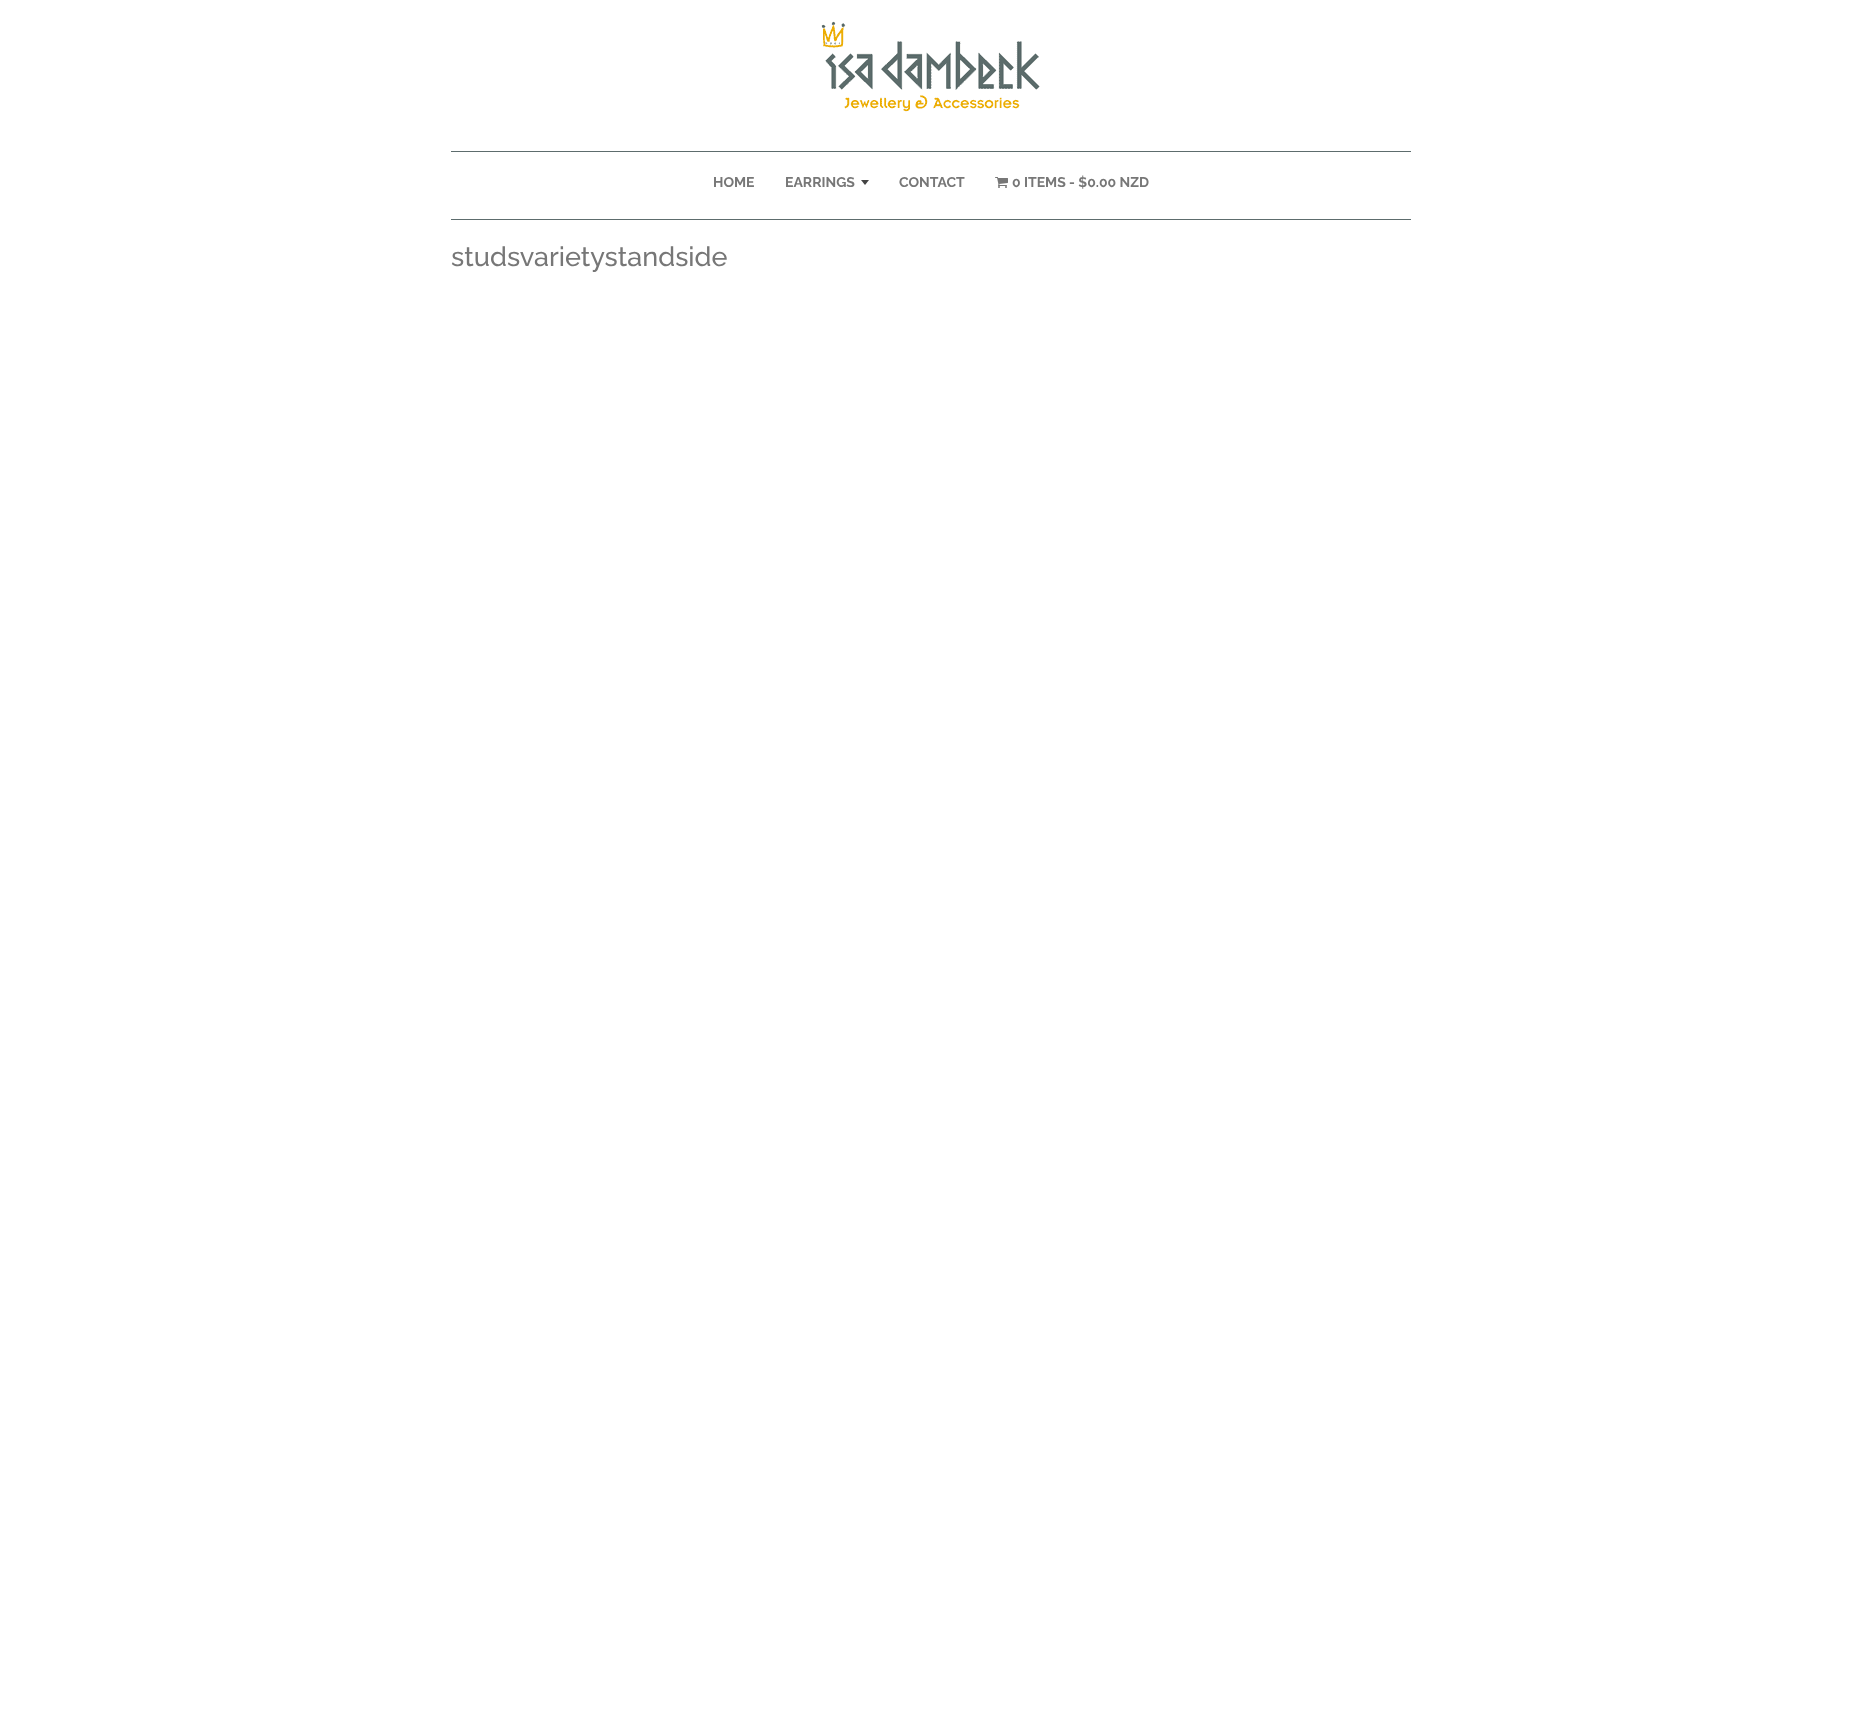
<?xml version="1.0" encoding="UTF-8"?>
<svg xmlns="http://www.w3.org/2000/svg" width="1862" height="1720">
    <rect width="100%" height="100%" fill="#FFFFFF"/>
    <image x="821" y="21" width="219" height="91" href="img_01.png"/>
    <rect x="451" y="151" width="960" height="1" fill="#5D6C6D"/>
    <rect x="451" y="219" width="960" height="1" fill="#5D6C6D"/>
    <text x="713" y="187" font-family="Raleway" font-size="14" font-weight="700" fill="#777777">HOME</text>
    <text x="785" y="187" font-family="Raleway" font-size="14" font-weight="700" fill="#777777">EARRINGS</text>
    <path d="M 861 180 H 869 L 865 185 Z" fill="#444444"/>
    <text x="899" y="187" font-family="Raleway" font-size="14" font-weight="700" fill="#777777">CONTACT</text>
    <image x="995" y="177" width="13" height="11" href="img_02.png"/>
    <text x="1012" y="187" font-family="Raleway" font-size="14" font-weight="700" fill="#777777">0 ITEMS - $0.00 NZD</text>
    <text x="451" y="266" font-family="Raleway" font-size="27" font-weight="500" fill="#777777">studsvarietystandside</text>
</svg>
